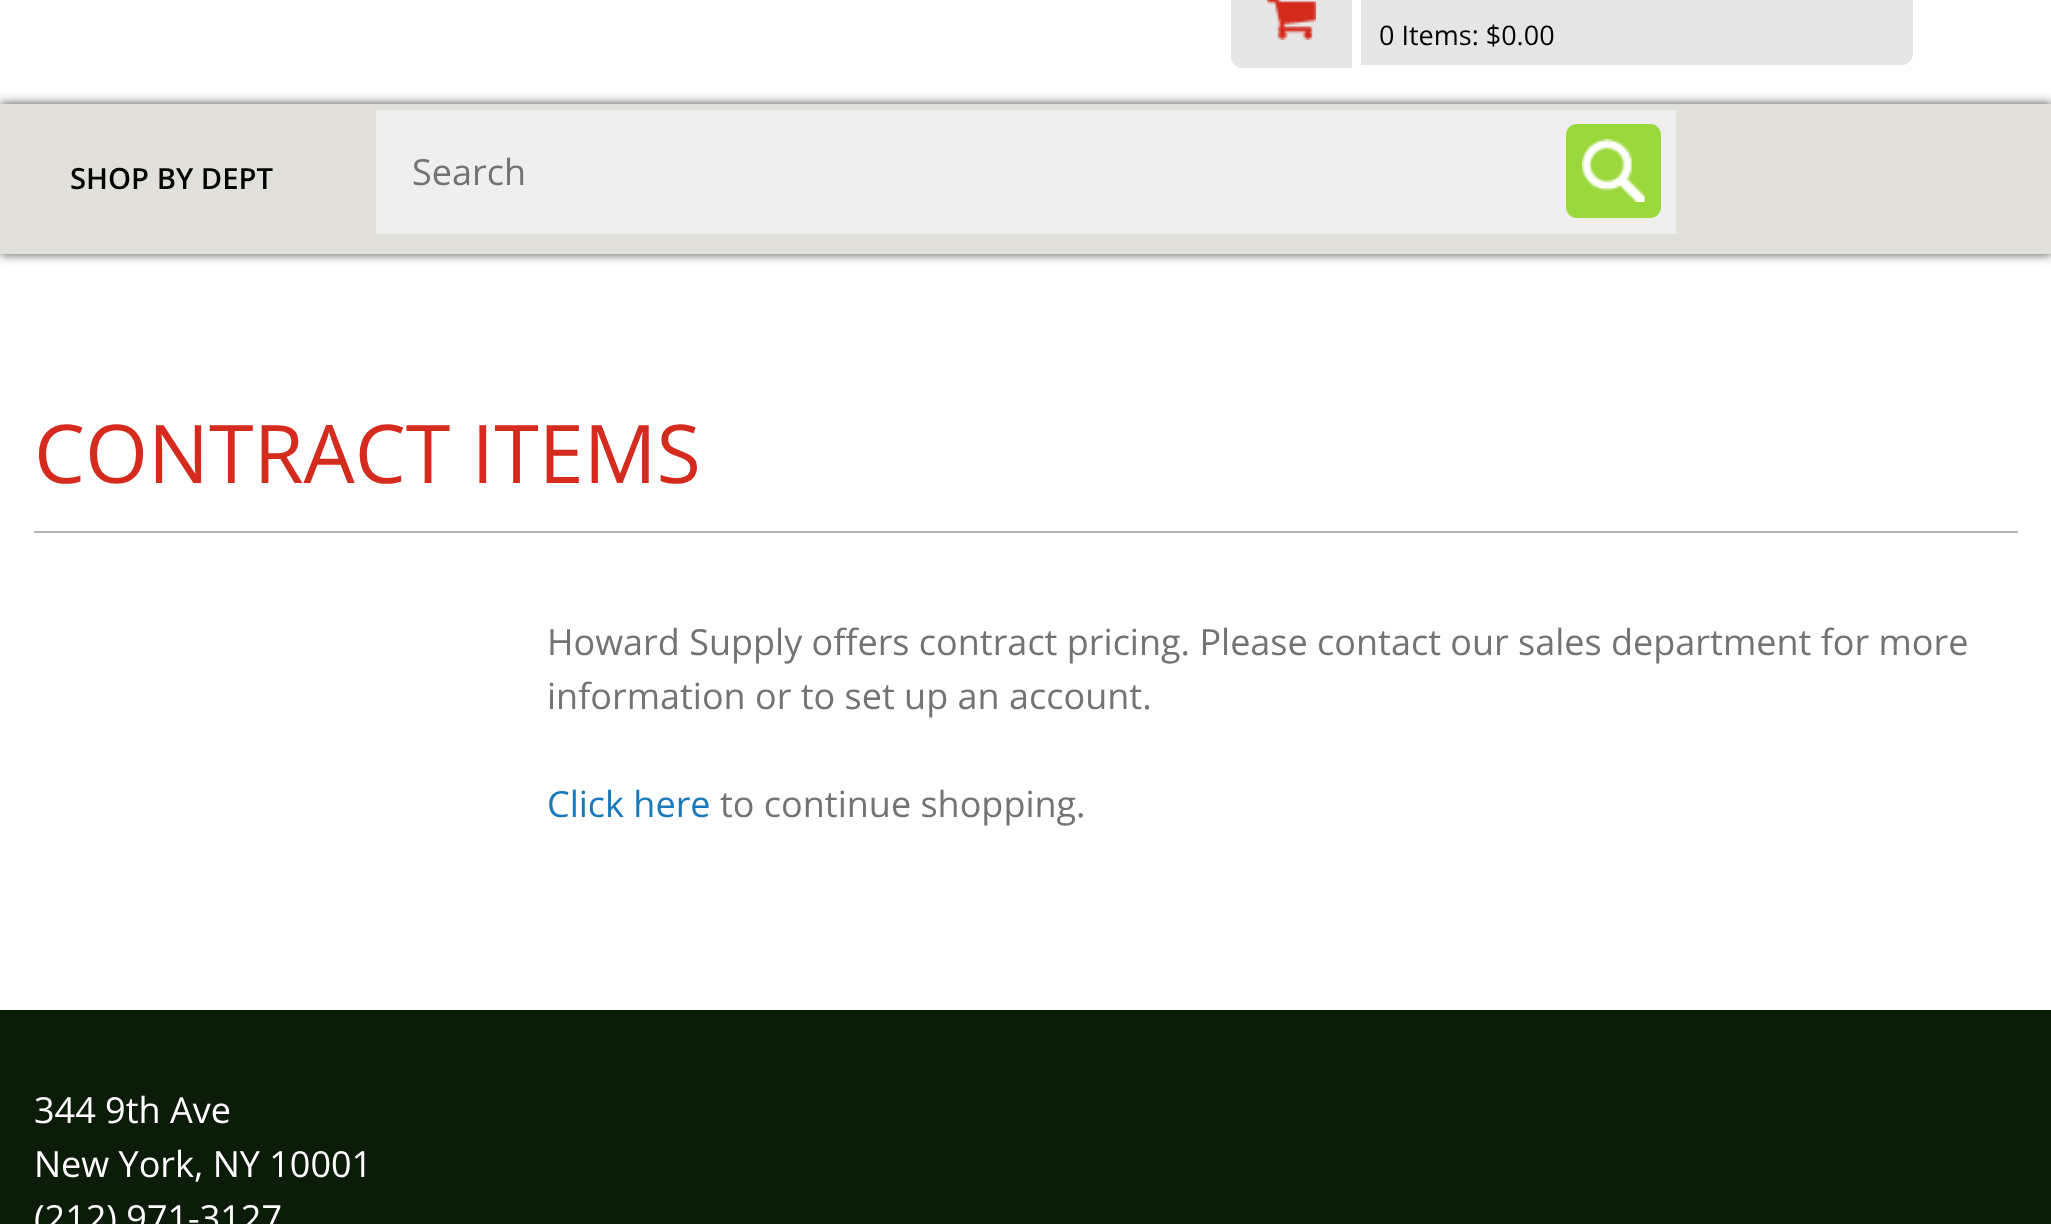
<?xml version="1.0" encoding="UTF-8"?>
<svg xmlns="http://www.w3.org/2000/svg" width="2051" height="1224">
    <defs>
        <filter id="blur1" x="-50%" y="-200%" width="200%" height="500%"><feGaussianBlur stdDeviation="5.5"/></filter>
    </defs>
    <rect width="100%" height="100%" fill="#FFFFFF"/>
    <path d="M 1242 -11 H 1352 V 68 H 1242 C 1236 68 1231 63 1231 57 V 0 C 1231 -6 1236 -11 1242 -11 Z" fill="#E6E6E6"/>
    <image x="1266" y="0" width="51" height="40" href="img_01.png"/>
    <path d="M 1361 -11 H 1902 C 1908 -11 1913 -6 1913 0 V 54 C 1913 60 1908 65 1902 65 H 1361 Z" fill="#E6E6E6"/>
    <text x="1379" y="45" font-family="Open Sans" font-size="27" fill="#000000">0 Items: $0.00</text>
    <rect x="0" y="104" width="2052" height="150" fill="#444444" filter="url(#blur1)"/>
    <rect x="0" y="104" width="2051" height="150" fill="#E2E0DA"/>
    <text x="70" y="189" font-family="Open Sans" font-size="29.25" font-weight="600" fill="#000000">SHOP BY DEPT</text>
    <rect x="376" y="110" width="1300" height="124" fill="#EFEFEF"/>
    <text x="412" y="185" font-family="Open Sans" font-size="36" fill="#737373">Search</text>
    <rect x="1566" y="124" width="95" height="94" rx="11" fill="#9BD83C"/>
    <image x="1581" y="139" width="64" height="63" href="img_02.png"/>
    <rect x="34" y="531" width="1984" height="2" fill="#B4B4B4"/>
    <text x="34" y="483" font-family="Open Sans" font-size="81" fill="#D52B1E">CONTRACT ITEMS</text>
    <text font-family="Open Sans" font-size="36" fill="#737373">
        <tspan x="547" y="655">Howard Supply offers contract pricing. Please contact our sales department for more</tspan>
        <tspan x="547" y="709">information or to set up an account.</tspan>
    </text>
    <text x="547" y="817" font-family="Open Sans" font-size="36" fill="#1779BA">Click here</text>
    <text x="720" y="817" font-family="Open Sans" font-size="36" fill="#737373">to continue shopping.</text>
    <rect x="0" y="1010" width="2051" height="214" fill="#0B1D08"/>
    <text font-family="Open Sans" font-size="36" fill="#FFFFFF">
        <tspan x="34" y="1123">344 9th Ave</tspan>
        <tspan x="34" y="1177">New York, NY 10001</tspan>
        <tspan x="34" y="1231">(212) 971-3127</tspan>
    </text>
</svg>
